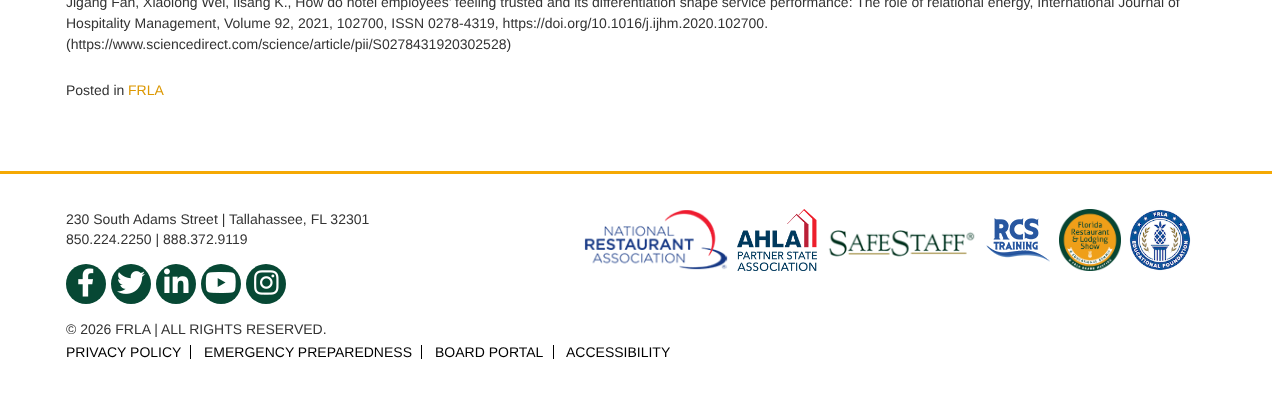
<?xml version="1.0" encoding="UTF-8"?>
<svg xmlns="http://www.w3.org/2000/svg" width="1272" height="417">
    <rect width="100%" height="100%" fill="#FFFFFF"/>
    <text font-family="Liberation Sans" font-size="14" fill="#333333">
        <tspan x="66" y="7">Jigang Fan, Xiaolong Wei, Ilsang K., How do hotel employees’ feeling trusted and its differentiation shape service performance: The role of relational energy, International Journal of</tspan>
        <tspan x="66" y="28">Hospitality Management, Volume 92, 2021, 102700, ISSN 0278-4319, https://doi.org/10.1016/j.ijhm.2020.102700.</tspan>
        <tspan x="66" y="49">(https://www.sciencedirect.com/science/article/pii/S0278431920302528)</tspan>
    </text>
    <text x="66" y="95" font-family="Liberation Sans" font-size="14" fill="#333333">Posted in</text>
    <text x="128" y="95" font-family="Liberation Sans" font-size="14" fill="#DC9803">FRLA</text>
    <rect x="0" y="171" width="1272" height="3" fill="#F5A903"/>
    <text font-family="Liberation Sans" font-size="14" fill="#333333">
        <tspan x="66" y="224">230 South Adams Street | Tallahassee, FL 32301</tspan>
        <tspan x="66" y="244">850.224.2250 | 888.372.9119</tspan>
    </text>
    <circle cx="86" cy="284" r="20" fill="#074834"/>
    <image x="78" y="268" width="16" height="29" href="img_01.png"/>
    <circle cx="131" cy="284" r="20" fill="#074834"/>
    <image x="117" y="271" width="28" height="23" href="img_02.png"/>
    <circle cx="176" cy="284" r="20" fill="#074834"/>
    <image x="164" y="268" width="25" height="25" href="img_03.png"/>
    <circle cx="221" cy="284" r="20" fill="#074834"/>
    <image x="205" y="272" width="31" height="21" href="img_04.png"/>
    <circle cx="266" cy="284" r="20" fill="#074834"/>
    <image x="254" y="270" width="25" height="25" href="img_05.png"/>
    <text x="66" y="334" font-family="Liberation Sans" font-size="14" fill="#333333">© 2026 FRLA | ALL RIGHTS RESERVED.</text>
    <image x="584" y="210" width="144" height="60" href="img_06.png"/>
    <image x="737" y="209" width="80" height="62" href="img_07.png"/>
    <image x="828" y="230" width="147" height="27" href="img_08.png"/>
    <image x="986" y="218" width="64" height="44" href="img_09.png"/>
    <image x="1059" y="209" width="62" height="62" href="img_10.png"/>
    <image x="1129" y="209" width="62" height="62" href="img_11.png"/>
    <rect x="190" y="345" width="1" height="14" fill="#000000"/>
    <text x="66" y="357" font-family="Liberation Sans" font-size="14" fill="#000000">PRIVACY POLICY</text>
    <rect x="421" y="345" width="1" height="14" fill="#000000"/>
    <text x="204" y="357" font-family="Liberation Sans" font-size="14" fill="#000000">EMERGENCY PREPAREDNESS</text>
    <rect x="553" y="345" width="1" height="14" fill="#000000"/>
    <text x="435" y="357" font-family="Liberation Sans" font-size="14" fill="#000000">BOARD PORTAL</text>
    <text x="566" y="357" font-family="Liberation Sans" font-size="14" fill="#000000">ACCESSIBILITY</text>
</svg>
